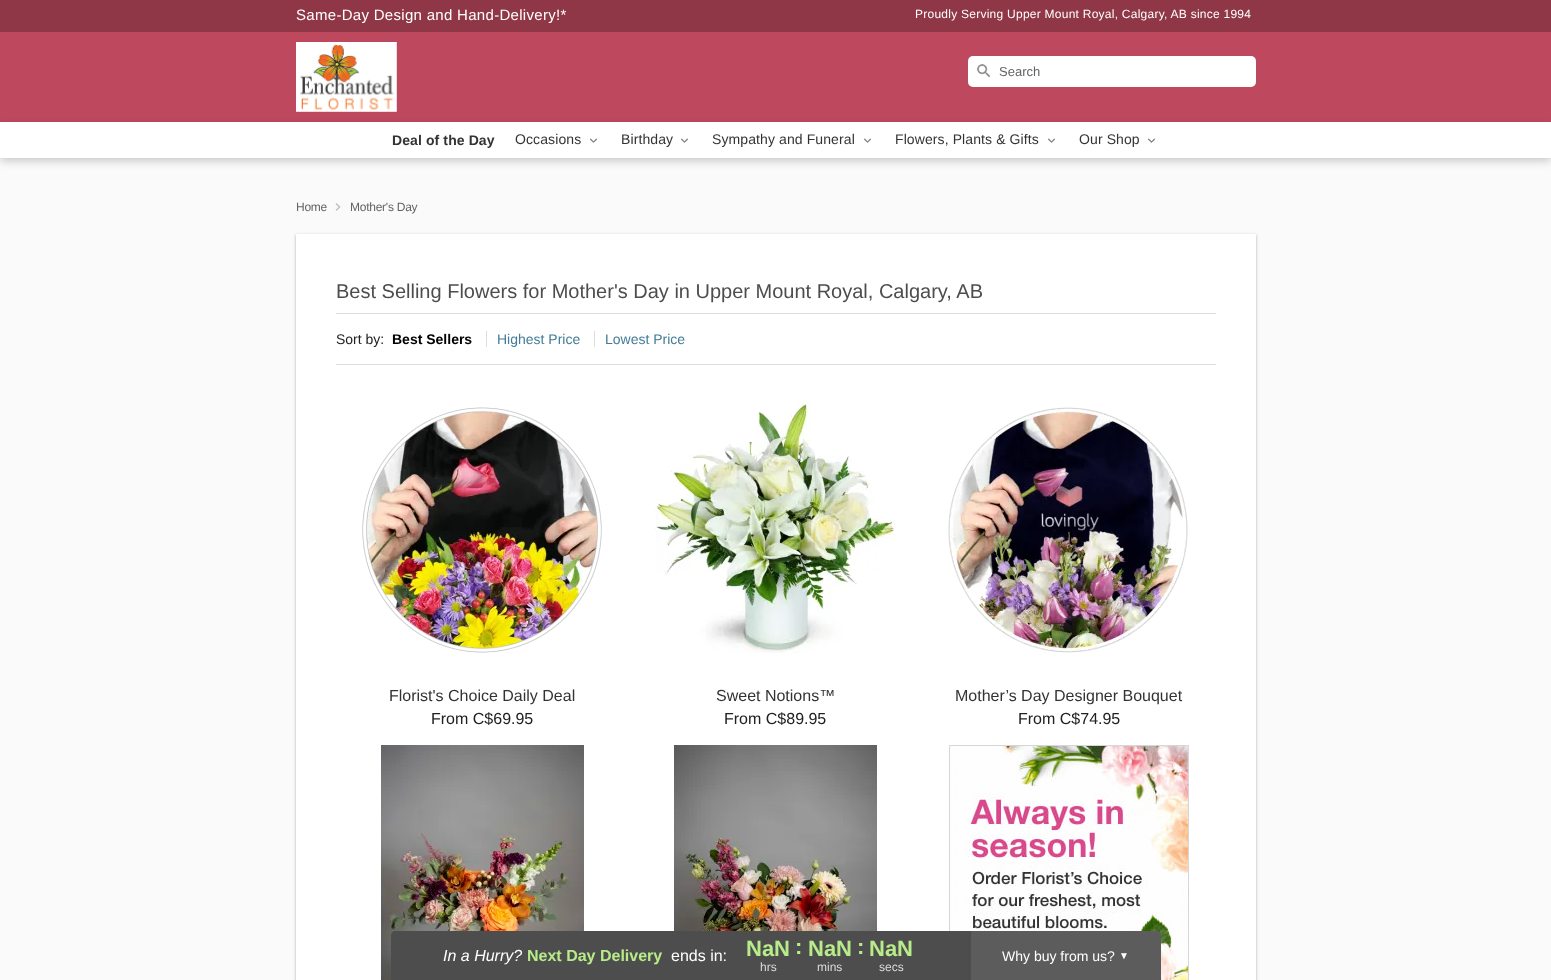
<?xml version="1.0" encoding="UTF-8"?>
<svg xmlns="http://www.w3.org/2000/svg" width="1551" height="980">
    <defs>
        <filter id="blur1" x="-50%" y="-200%" width="200%" height="500%"><feGaussianBlur stdDeviation="4"/></filter>
        <filter id="blur2" x="-50%" y="-200%" width="200%" height="500%"><feGaussianBlur stdDeviation="1.5"/></filter>
    </defs>
    <rect width="100%" height="100%" fill="#FAFAFA"/>
    <rect x="0" y="0" width="1551" height="32" fill="#8F3747"/>
    <text x="296" y="20" font-family="Liberation Sans" font-size="15" letter-spacing="0.3" fill="#FFFFFF">Same-Day Design and Hand-Delivery!*</text>
    <text x="915" y="18" font-family="Liberation Sans" font-size="12" letter-spacing="0.25" fill="#FFFFFF">Proudly Serving Upper Mount Royal, Calgary, AB since 1994</text>
    <rect x="0" y="32" width="1551" height="90" fill="#BE495F"/>
    <image x="296" y="42" width="101" height="70" href="img_01.png"/>
    <rect x="968" y="56" width="288" height="31" rx="5" fill="#FFFFFF"/>
    <image x="977" y="64" width="14" height="14" href="img_02.png"/>
    <text x="999" y="76" font-family="Liberation Sans" font-size="13" fill="#646464">Search</text>
    <rect x="0" y="125" width="1551" height="36" fill="#000000" fill-opacity="0.2" filter="url(#blur1)"/>
    <rect x="0" y="122" width="1551" height="36" fill="#FFFFFF"/>
    <text x="392" y="145" font-family="Liberation Sans" font-size="14" font-weight="700" letter-spacing="0.1" fill="#333333">Deal of the Day</text>
    <text x="515" y="144" font-family="Liberation Sans" font-size="14" letter-spacing="0.1" fill="#333333">Occasions</text>
    <image x="590" y="138" width="7" height="5" href="img_03.png"/>
    <text x="621" y="144" font-family="Liberation Sans" font-size="14" letter-spacing="0.1" fill="#333333">Birthday</text>
    <image x="681" y="138" width="7" height="5" href="img_03.png"/>
    <text x="712" y="144" font-family="Liberation Sans" font-size="14" letter-spacing="0.1" fill="#333333">Sympathy and Funeral</text>
    <image x="864" y="138" width="7" height="5" href="img_03.png"/>
    <text x="895" y="144" font-family="Liberation Sans" font-size="14" letter-spacing="0.1" fill="#333333">Flowers, Plants &amp; Gifts</text>
    <image x="1048" y="138" width="7" height="5" href="img_03.png"/>
    <text x="1079" y="144" font-family="Liberation Sans" font-size="14" letter-spacing="0.1" fill="#333333">Our Shop</text>
    <image x="1148" y="138" width="7" height="5" href="img_03.png"/>
    <text x="296" y="211" font-family="Liberation Sans" font-size="12" letter-spacing="-0.25" fill="#646464">Home</text>
    <image x="335" y="203" width="6" height="8" href="img_04.png"/>
    <text x="350" y="211" font-family="Liberation Sans" font-size="12" letter-spacing="-0.25" fill="#646464">Mother's Day</text>
    <rect x="296" y="235" width="960" height="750" fill="#000000" fill-opacity="0.3" filter="url(#blur2)"/>
    <rect x="296" y="234" width="960" height="746" fill="#FFFFFF"/>
    <text x="336" y="298" font-family="Liberation Sans" font-size="20" fill="#4D4D4D">Best Selling Flowers for Mother's Day in Upper Mount Royal, Calgary, AB</text>
    <rect x="336" y="313" width="880" height="1" fill="#DEDEDE"/>
    <rect x="336" y="364" width="880" height="1" fill="#DEDEDE"/>
    <text x="336" y="344" font-family="Liberation Sans" font-size="14" fill="#212121">Sort by:</text>
    <text x="392" y="344" font-family="Liberation Sans" font-size="14" font-weight="700" fill="#000000">Best Sellers</text>
    <text x="497" y="344" font-family="Liberation Sans" font-size="14" fill="#447C97">Highest Price</text>
    <rect x="486" y="331" width="1" height="16" fill="#DEDEDE"/>
    <text x="605" y="344" font-family="Liberation Sans" font-size="14" fill="#447C97">Lowest Price</text>
    <rect x="594" y="331" width="1" height="16" fill="#DEDEDE"/>
    <image x="362" y="407" width="240" height="246" href="img_05.png"/>
    <text x="389" y="701" font-family="Liberation Sans" font-size="16" fill="#333333">Florist's Choice Daily Deal</text>
    <text x="431" y="724" font-family="Liberation Sans" font-size="16" fill="#212121">From C$69.95</text>
    <image x="655" y="403" width="240" height="250" href="img_06.png"/>
    <text x="716" y="701" font-family="Liberation Sans" font-size="16" fill="#333333">Sweet Notions™</text>
    <text x="724" y="724" font-family="Liberation Sans" font-size="16" fill="#212121">From C$89.95</text>
    <image x="948" y="407" width="240" height="246" href="img_07.png"/>
    <text x="955" y="701" font-family="Liberation Sans" font-size="16" fill="#333333">Mother’s Day Designer Bouquet</text>
    <text x="1018" y="724" font-family="Liberation Sans" font-size="16" fill="#212121">From C$74.95</text>
    <image x="381" y="745" width="203" height="235" href="img_08.png"/>
    <image x="674" y="745" width="203" height="186" href="img_09.png"/>
    <image x="949" y="745" width="240" height="235" href="img_10.png"/>
    <path d="M 395 931 H 971 V 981 H 391 V 935 C 391 933 393 931 395 931 Z" fill="#4D4D4D"/>
    <text x="443" y="961" font-family="Liberation Sans" font-size="16" font-style="italic" fill="#FFFFFF">In a Hurry?</text>
    <text x="527" y="961" font-family="Liberation Sans" font-size="16" font-weight="700" fill="#B8EB89">Next Day Delivery</text>
    <text x="671" y="961" font-family="Liberation Sans" font-size="16" fill="#FFFFFF">ends in:</text>
    <text x="746" y="956" font-family="Liberation Sans" font-size="22" font-weight="700" fill="#B8EB89">NaN</text>
    <text x="760" y="971" font-family="Liberation Sans" font-size="12" fill="#DBDBDB">hrs</text>
    <text x="795" y="954" font-family="Liberation Sans" font-size="22" font-weight="700" fill="#B8EB89">:</text>
    <text x="808" y="956" font-family="Liberation Sans" font-size="22" font-weight="700" fill="#B8EB89">NaN</text>
    <text x="817" y="971" font-family="Liberation Sans" font-size="12" fill="#DBDBDB">mins</text>
    <text x="857" y="954" font-family="Liberation Sans" font-size="22" font-weight="700" fill="#B8EB89">:</text>
    <text x="869" y="956" font-family="Liberation Sans" font-size="22" font-weight="700" fill="#B8EB89">NaN</text>
    <text x="879" y="971" font-family="Liberation Sans" font-size="12" fill="#DBDBDB">secs</text>
    <path d="M 971 931 H 1157 C 1159 931 1161 933 1161 935 V 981 H 971 Z" fill="#5C5C5C"/>
    <text x="1002" y="961" font-family="Liberation Sans" font-size="14" fill="#FFFFFF">Why buy from us?</text>
    <text x="1119" y="959" font-family="Liberation Sans" font-size="10" fill="#FFFFFF">▼</text>
</svg>
